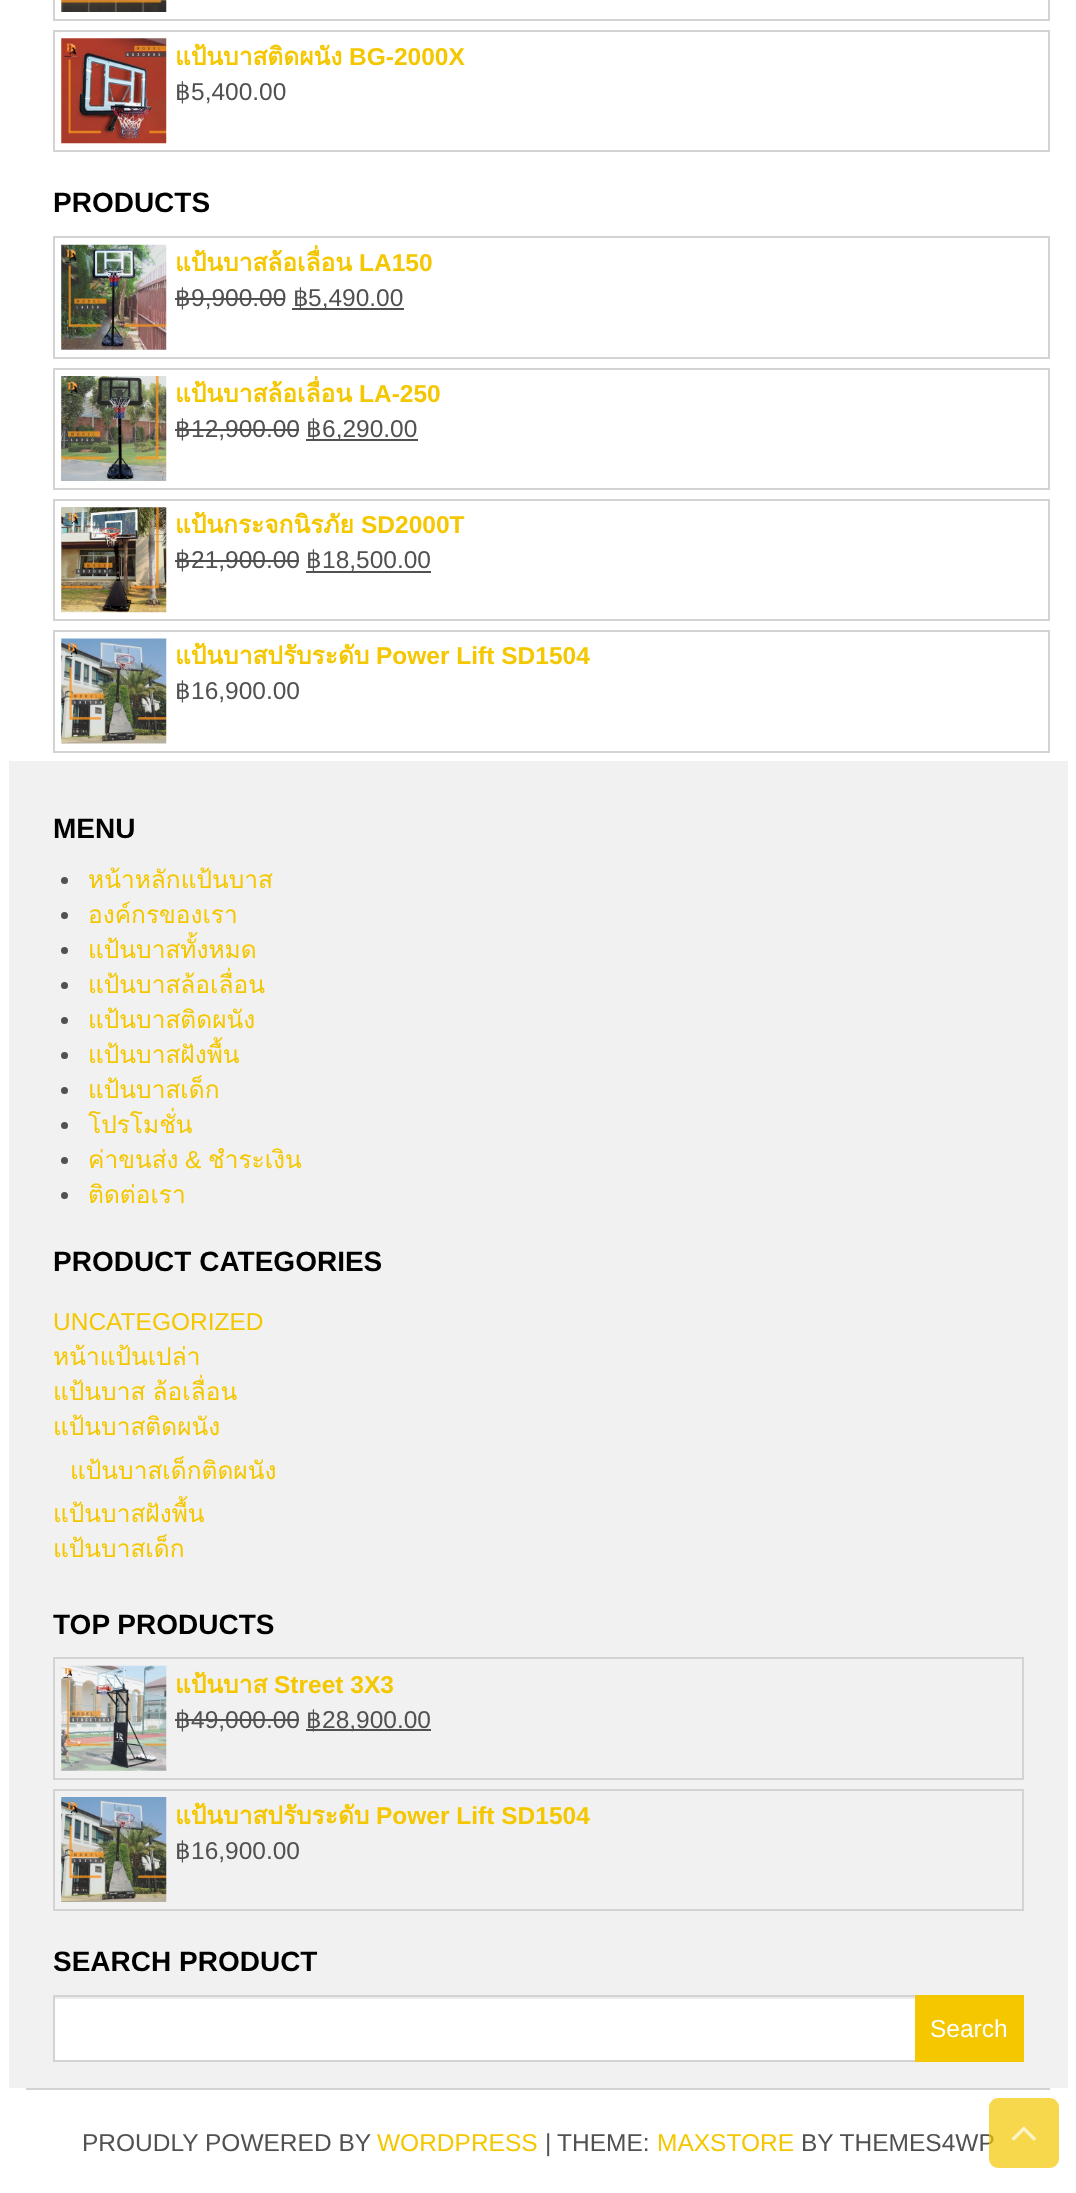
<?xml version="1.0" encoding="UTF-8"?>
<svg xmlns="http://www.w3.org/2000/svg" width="1076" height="2193">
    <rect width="100%" height="100%" fill="#FFFFFF"/>
    <rect x="54" y="-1" width="995" height="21" fill="none" stroke="#D3D3D3" stroke-width="2"/>
    <image x="61" y="0" width="106" height="12" href="img_01.png"/>
    <rect x="54" y="31" width="995" height="120" fill="none" stroke="#D3D3D3" stroke-width="2"/>
    <image x="61" y="38" width="106" height="106" href="img_02.png"/>
    <text x="175" y="65" font-family="Loma" font-size="24.5" font-weight="700" fill="#F4C700">แป้นบาสติดผนัง</text>
    <text x="349" y="65" font-family="Liberation Sans" font-size="24.5" font-weight="700" fill="#F4C700">BG-2000X</text>
    <text x="175" y="100" font-family="DejaVu Sans" font-size="24.5" fill="#515151">฿</text>
    <text x="191" y="100" font-family="Liberation Sans" font-size="24.5" fill="#515151">5,400.00</text>
    <text x="53" y="212" font-family="Liberation Sans" font-size="28" font-weight="700" fill="#000000">PRODUCTS</text>
    <rect x="54" y="237" width="995" height="121" fill="none" stroke="#D3D3D3" stroke-width="2"/>
    <image x="61" y="244" width="106" height="106" href="img_03.png"/>
    <text x="175" y="271" font-family="Loma" font-size="24.5" font-weight="700" fill="#F4C700">แป้นบาสล้อเลื่อน</text>
    <text x="359" y="271" font-family="Liberation Sans" font-size="24.5" font-weight="700" fill="#F4C700">LA150</text>
    <text x="175" y="306" font-family="DejaVu Sans" font-size="24.5" fill="#515151">฿</text>
    <text x="191" y="306" font-family="Liberation Sans" font-size="24.5" fill="#515151">9,900.00</text>
    <rect x="175" y="298" width="16" height="2" fill="#515151"/>
    <rect x="191" y="298" width="94" height="2" fill="#515151"/>
    <rect x="292" y="308" width="112" height="2" fill="#515151"/>
    <text x="293" y="306" font-family="DejaVu Sans" font-size="24.5" fill="#515151">฿</text>
    <text x="308" y="306" font-family="Liberation Sans" font-size="24.5" fill="#515151">5,490.00</text>
    <rect x="54" y="369" width="995" height="120" fill="none" stroke="#D3D3D3" stroke-width="2"/>
    <image x="61" y="376" width="106" height="105" href="img_04.png"/>
    <text x="175" y="402" font-family="Loma" font-size="24.5" font-weight="700" fill="#F4C700">แป้นบาสล้อเลื่อน</text>
    <text x="359" y="402" font-family="Liberation Sans" font-size="24.5" font-weight="700" fill="#F4C700">LA-250</text>
    <text x="175" y="437" font-family="DejaVu Sans" font-size="24.5" fill="#515151">฿</text>
    <rect x="175" y="429" width="16" height="2" fill="#515151"/>
    <text x="191" y="437" font-family="Liberation Sans" font-size="24.5" fill="#515151">12,900.00</text>
    <rect x="191" y="429" width="108" height="2" fill="#515151"/>
    <rect x="306" y="439" width="112" height="2" fill="#515151"/>
    <text x="306" y="437" font-family="DejaVu Sans" font-size="24.5" fill="#515151">฿</text>
    <text x="322" y="437" font-family="Liberation Sans" font-size="24.5" fill="#515151">6,290.00</text>
    <rect x="54" y="500" width="995" height="120" fill="none" stroke="#D3D3D3" stroke-width="2"/>
    <image x="61" y="507" width="106" height="106" href="img_05.png"/>
    <text x="175" y="533" font-family="Loma" font-size="24.5" font-weight="700" fill="#F4C700">แป้นกระจกนิรภัย</text>
    <text x="361" y="533" font-family="Liberation Sans" font-size="24.5" font-weight="700" fill="#F4C700">SD2000T</text>
    <text x="175" y="568" font-family="DejaVu Sans" font-size="24.5" fill="#515151">฿</text>
    <text x="191" y="568" font-family="Liberation Sans" font-size="24.5" fill="#515151">21,900.00</text>
    <rect x="175" y="560" width="16" height="2" fill="#515151"/>
    <rect x="191" y="560" width="108" height="2" fill="#515151"/>
    <rect x="306" y="571" width="125" height="2" fill="#515151"/>
    <text x="306" y="568" font-family="DejaVu Sans" font-size="24.5" fill="#515151">฿</text>
    <text x="322" y="568" font-family="Liberation Sans" font-size="24.5" fill="#515151">18,500.00</text>
    <rect x="54" y="631" width="995" height="121" fill="none" stroke="#D3D3D3" stroke-width="2"/>
    <image x="61" y="638" width="106" height="106" href="img_06.png"/>
    <text x="175" y="664" font-family="Loma" font-size="24.5" font-weight="700" fill="#F4C700">แป้นบาสปรับระดับ</text>
    <text x="376" y="664" font-family="Liberation Sans" font-size="24.5" font-weight="700" fill="#F4C700">Power Lift SD1504</text>
    <text x="175" y="699" font-family="DejaVu Sans" font-size="24.5" fill="#515151">฿</text>
    <text x="191" y="699" font-family="Liberation Sans" font-size="24.5" fill="#515151">16,900.00</text>
    <rect x="9" y="761" width="1059" height="1327" fill="#F1F1F1"/>
    <text x="53" y="838" font-family="Liberation Sans" font-size="28" font-weight="700" fill="#000000">MENU</text>
    <circle cx="64.5" cy="880.5" r="3.5" fill="#515151"/>
    <text x="88" y="888" font-family="Loma" font-size="24.5" fill="#F4C700">หน้าหลักแป้นบาส</text>
    <circle cx="64.5" cy="915.5" r="3.5" fill="#515151"/>
    <text x="88" y="923" font-family="Loma" font-size="24.5" fill="#F4C700">องค์กรของเรา</text>
    <circle cx="64.5" cy="950.5" r="3.5" fill="#515151"/>
    <text x="88" y="958" font-family="Loma" font-size="24.5" fill="#F4C700">แป้นบาสทั้งหมด</text>
    <circle cx="64.5" cy="985.5" r="3.5" fill="#515151"/>
    <text x="88" y="993" font-family="Loma" font-size="24.5" fill="#F4C700">แป้นบาสล้อเลื่อน</text>
    <circle cx="64.5" cy="1020.5" r="3.5" fill="#515151"/>
    <text x="88" y="1028" font-family="Loma" font-size="24.5" fill="#F4C700">แป้นบาสติดผนัง</text>
    <circle cx="64.5" cy="1055.5" r="3.5" fill="#515151"/>
    <text x="88" y="1063" font-family="Loma" font-size="24.5" fill="#F4C700">แป้นบาสฝังพื้น</text>
    <circle cx="64.5" cy="1090.5" r="3.5" fill="#515151"/>
    <text x="88" y="1098" font-family="Loma" font-size="24.5" fill="#F4C700">แป้นบาสเด็ก</text>
    <circle cx="64.5" cy="1125.5" r="3.5" fill="#515151"/>
    <text x="88" y="1133" font-family="Loma" font-size="24.5" fill="#F4C700">โปรโมชั่น</text>
    <circle cx="64.5" cy="1160.5" r="3.5" fill="#515151"/>
    <text x="88" y="1168" font-family="Loma" font-size="24.5" fill="#F4C700">ค่าขนส่ง</text>
    <text x="185" y="1168" font-family="Liberation Sans" font-size="24.5" fill="#F4C700">&amp;</text>
    <text x="208" y="1168" font-family="Loma" font-size="24.5" fill="#F4C700">ชำระเงิน</text>
    <circle cx="64.5" cy="1195.5" r="3.5" fill="#515151"/>
    <text x="88" y="1203" font-family="Loma" font-size="24.5" fill="#F4C700">ติดต่อเรา</text>
    <text x="53" y="1271" font-family="Liberation Sans" font-size="28" font-weight="700" fill="#000000">PRODUCT CATEGORIES</text>
    <text x="53" y="1330" font-family="Liberation Sans" font-size="24.5" fill="#F4C700">UNCATEGORIZED</text>
    <text font-family="Loma" font-size="24.5" fill="#F4C700">
        <tspan x="53" y="1365">หน้าแป้นเปล่า</tspan>
        <tspan x="53" y="1400" word-spacing="-1">แป้นบาส ล้อเลื่อน</tspan>
        <tspan x="53" y="1435">แป้นบาสติดผนัง</tspan>
    </text>
    <text x="70" y="1479" font-family="Loma" font-size="24.5" fill="#F4C700">แป้นบาสเด็กติดผนัง</text>
    <text font-family="Loma" font-size="24.5" fill="#F4C700">
        <tspan x="53" y="1522">แป้นบาสฝังพื้น</tspan>
        <tspan x="53" y="1557">แป้นบาสเด็ก</tspan>
    </text>
    <text x="53" y="1634" font-family="Liberation Sans" font-size="28" font-weight="700" fill="#000000">TOP PRODUCTS</text>
    <rect x="54" y="1658" width="969" height="121" fill="none" stroke="#D3D3D3" stroke-width="2"/>
    <image x="61" y="1665" width="106" height="106" href="img_07.png"/>
    <text x="175" y="1693" font-family="Loma" font-size="24.5" font-weight="700" fill="#F4C700">แป้นบาส</text>
    <text x="274" y="1693" font-family="Liberation Sans" font-size="24.5" font-weight="700" fill="#F4C700">Street 3X3</text>
    <text x="175" y="1728" font-family="DejaVu Sans" font-size="24.5" fill="#515151">฿</text>
    <rect x="175" y="1719" width="16" height="2" fill="#515151"/>
    <text x="191" y="1728" font-family="Liberation Sans" font-size="24.5" fill="#515151">49,000.00</text>
    <rect x="191" y="1719" width="108" height="2" fill="#515151"/>
    <rect x="306" y="1729" width="125" height="2" fill="#515151"/>
    <text x="306" y="1728" font-family="DejaVu Sans" font-size="24.5" fill="#515151">฿</text>
    <text x="322" y="1728" font-family="Liberation Sans" font-size="24.5" fill="#515151">28,900.00</text>
    <rect x="54" y="1790" width="969" height="120" fill="none" stroke="#D3D3D3" stroke-width="2"/>
    <image x="61" y="1797" width="106" height="105" href="img_08.png"/>
    <text x="175" y="1824" font-family="Loma" font-size="24.5" font-weight="700" fill="#F4C700">แป้นบาสปรับระดับ</text>
    <text x="376" y="1824" font-family="Liberation Sans" font-size="24.5" font-weight="700" fill="#F4C700">Power Lift SD1504</text>
    <text x="175" y="1859" font-family="DejaVu Sans" font-size="24.5" fill="#515151">฿</text>
    <text x="191" y="1859" font-family="Liberation Sans" font-size="24.5" fill="#515151">16,900.00</text>
    <text x="53" y="1971" font-family="Liberation Sans" font-size="28" font-weight="700" fill="#000000">SEARCH PRODUCT</text>
    <rect x="55" y="1999" width="860" height="61" fill="#FFFFFF"/>
    <rect x="54" y="1997" width="861" height="2" fill="#ECECEC"/>
    <rect x="54" y="1996" width="969" height="65" fill="none" stroke="#D3D3D3" stroke-width="2"/>
    <rect x="915" y="1995" width="109" height="67" fill="#F4C700"/>
    <text x="930" y="2037" font-family="Liberation Sans" font-size="24.5" fill="#FFFFFF">Search</text>
    <rect x="26" y="2088" width="1024" height="2" fill="#D3D3D3"/>
    <text x="82" y="2151" font-family="Liberation Sans" font-size="24.5" fill="#515151">PROUDLY POWERED BY</text>
    <text x="377" y="2151" font-family="Liberation Sans" font-size="24.5" fill="#F4C700">WORDPRESS</text>
    <text x="545" y="2151" font-family="Liberation Sans" font-size="24.5" fill="#515151">|</text>
    <text x="557" y="2151" font-family="Liberation Sans" font-size="24.5" fill="#515151">THEME:</text>
    <text x="657" y="2151" font-family="Liberation Sans" font-size="24.5" fill="#F4C700">MAXSTORE</text>
    <text x="801" y="2151" font-family="Liberation Sans" font-size="24.5" fill="#515151">BY THEMES4WP</text>
    <rect x="989" y="2098" width="70" height="70" rx="9" fill="#F4C700" fill-opacity="0.7"/>
    <image x="1011" y="2126" width="25" height="15" href="img_09.png"/>
</svg>
